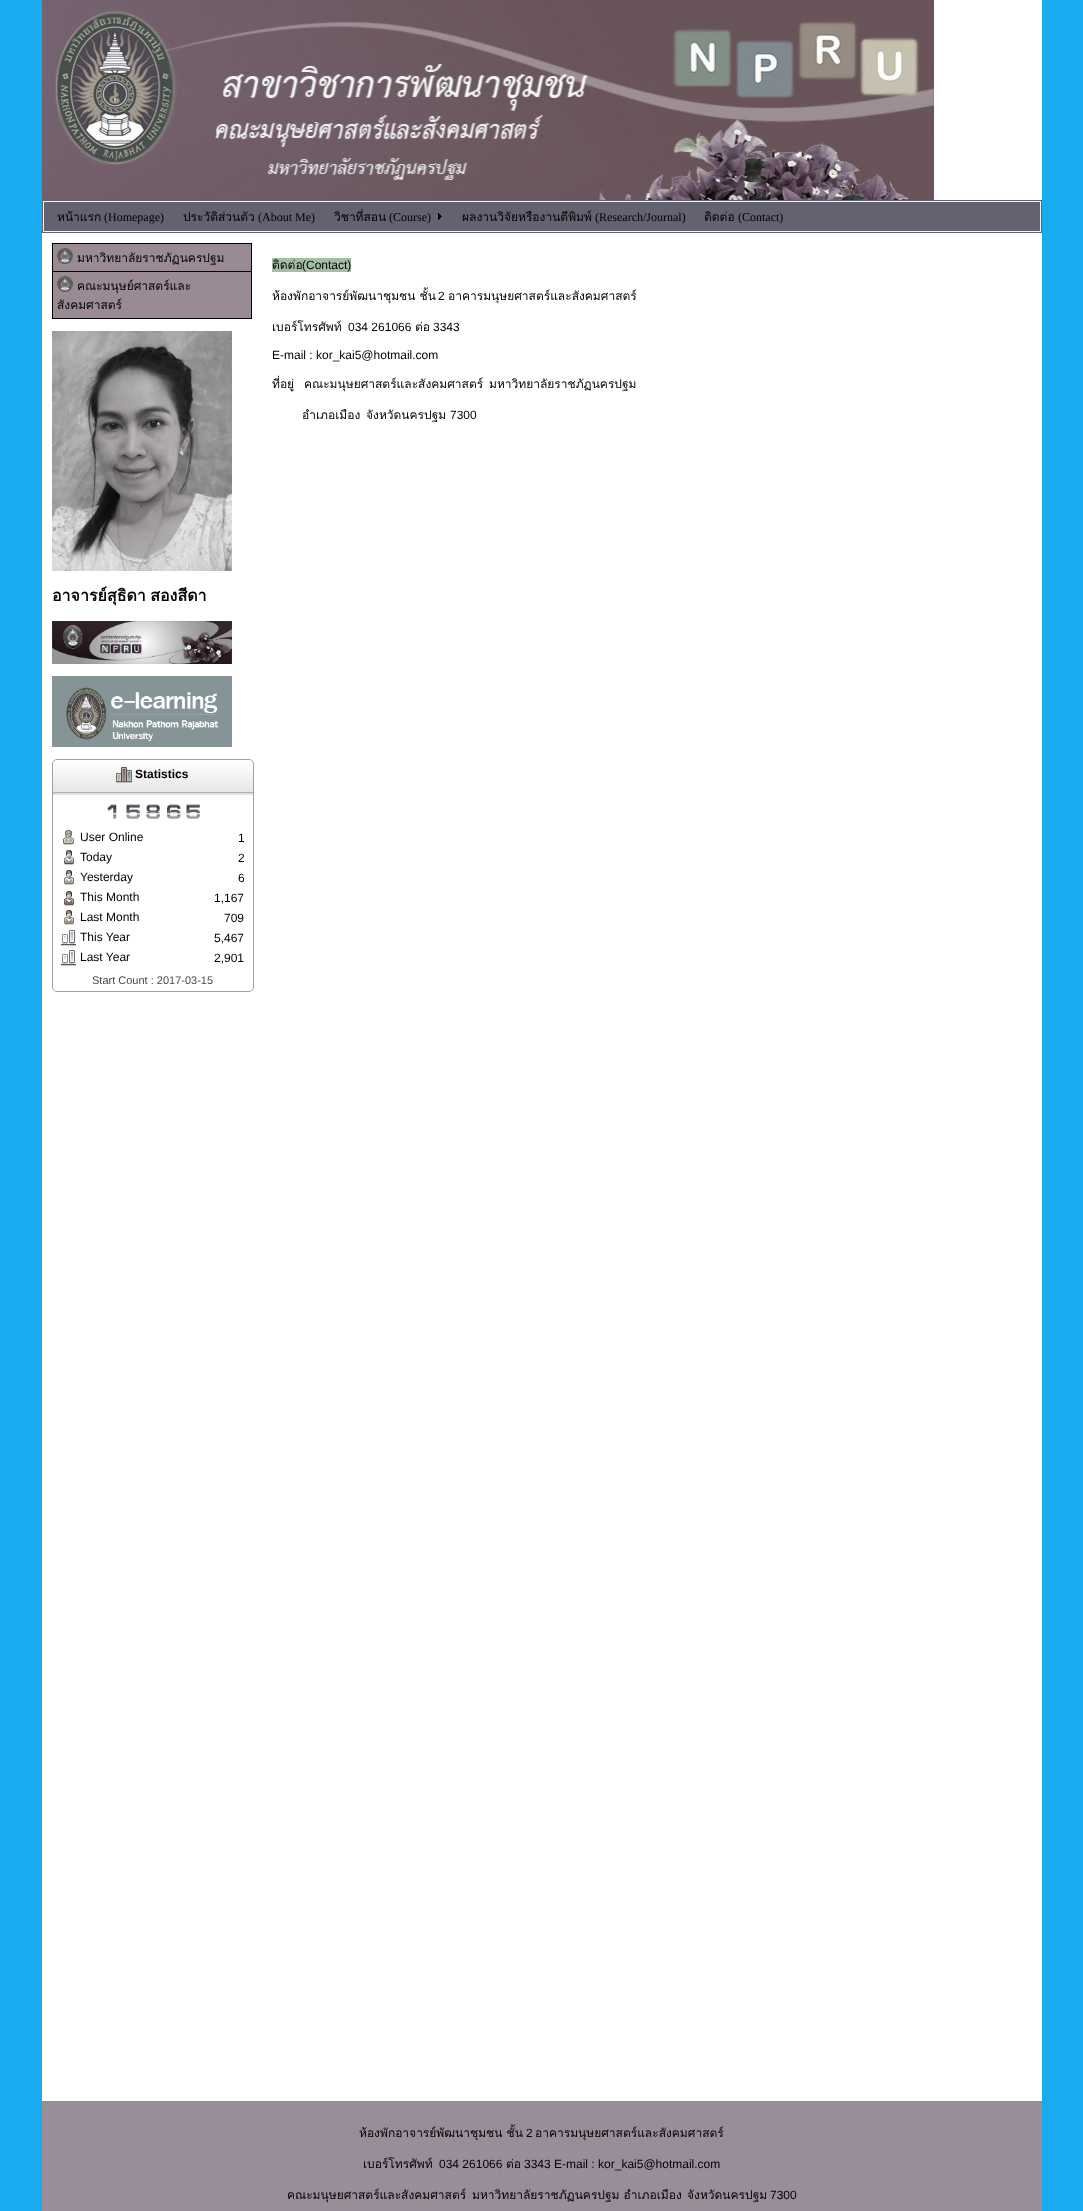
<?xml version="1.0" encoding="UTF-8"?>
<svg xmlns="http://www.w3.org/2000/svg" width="1083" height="2211">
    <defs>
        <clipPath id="clip1"><rect x="334" y="207" width="109" height="19"/></clipPath>
    </defs>
    <rect width="100%" height="100%" fill="#18ABF0"/>
    <rect x="42" y="0" width="1000" height="2101" fill="#FFFFFF"/>
    <image x="42" y="0" width="892" height="200" href="img_01.png"/>
    <rect x="42" y="200" width="1000" height="33" fill="#626271"/>
    <rect x="43.5" y="201.5" width="997" height="30" fill="none" stroke="#F4F4F4"/>
    <text x="57" y="221" font-family="Loma" font-size="12" fill="#000000">หน้าแรก</text>
    <text x="104" y="221" font-family="Liberation Serif" font-size="12" fill="#000000">(Homepage)</text>
    <text x="183" y="221" font-family="Loma" font-size="12" fill="#000000">ประวัติส่วนตัว</text>
    <text x="258" y="221" font-family="Liberation Serif" font-size="12" fill="#000000">(About Me)</text>
    <image x="438" y="213" width="4" height="7" href="img_02.png"/>
    <g clip-path="url(#clip1)">
        <text x="334" y="221" font-family="Loma" font-size="12" fill="#000000">วิชาที่สอน</text>
    </g>
    <text x="389" y="221" font-family="Liberation Serif" font-size="12" fill="#000000">(Course)</text>
    <text x="462" y="221" font-family="Loma" font-size="12" fill="#000000">ผลงานวิจัยหรืองานตีพิมพ์</text>
    <text x="595" y="221" font-family="Liberation Serif" font-size="12" fill="#000000">(Research/Journal)</text>
    <text x="704" y="221" font-family="Loma" font-size="12" fill="#000000">ติดต่อ</text>
    <text x="738" y="221" font-family="Liberation Serif" font-size="12" fill="#000000">(Contact)</text>
    <rect x="52" y="243" width="200" height="76" fill="#000000"/>
    <rect x="53" y="244" width="198" height="27" fill="#998A94"/>
    <image x="57" y="248" width="16" height="16" href="img_03.png"/>
    <text x="77" y="262" font-family="Loma" font-size="12" fill="#000000">มหาวิทยาลัยราชภัฏนครปฐม</text>
    <rect x="53" y="272" width="198" height="46" fill="#998A94"/>
    <image x="57" y="276" width="16" height="16" href="img_03.png"/>
    <text x="77" y="290" font-family="Loma" font-size="12" fill="#000000">คณะมนุษย์ศาสตร์และ</text>
    <text x="57" y="309" font-family="Loma" font-size="12" fill="#000000">สังคมศาสตร์</text>
    <image x="52" y="331" width="180" height="240" href="img_04.png"/>
    <text x="52" y="601" word-spacing="-1" font-family="Loma" font-size="16" font-weight="700" fill="#000000">อาจารย์สุธิดา สองสีดา</text>
    <image x="52" y="621" width="180" height="43" href="img_05.png"/>
    <image x="52" y="676" width="180" height="71" href="img_06.png"/>
    <rect x="52.5" y="759.5" width="201" height="232" rx="4.5" fill="none" stroke="#A0A0A2"/>
    <path d="M 58 760 H 248 C 251 760 253 762 253 765 V 795 H 53 V 765 C 53 762 55 760 58 760 Z" fill="#F1F1F1"/>
    <image x="53" y="760" width="200" height="35" href="img_07.png"/>
    <image x="116" y="767" width="16" height="16" href="img_08.png"/>
    <text x="135" y="778" font-family="Liberation Sans" font-size="12" font-weight="700" fill="#000000">Statistics</text>
    <image x="107" y="804" width="10" height="15" href="img_09.png"/>
    <image x="126" y="804" width="14" height="15" href="img_10.png"/>
    <image x="146" y="804" width="14" height="15" href="img_11.png"/>
    <image x="167" y="804" width="14" height="15" href="img_12.png"/>
    <image x="186" y="804" width="14" height="15" href="img_10.png"/>
    <image x="63" y="830" width="11" height="15" href="img_13.png"/>
    <text x="80" y="841" font-family="Liberation Sans" font-size="12" fill="#000000">User Online</text>
    <text x="238" y="842" font-family="Liberation Sans" font-size="12" fill="#000000">1</text>
    <image x="64" y="850" width="10" height="15" href="img_14.png"/>
    <text x="80" y="861" font-family="Liberation Sans" font-size="12" fill="#000000">Today</text>
    <text x="238" y="862" font-family="Liberation Sans" font-size="12" fill="#000000">2</text>
    <image x="64" y="870" width="10" height="15" href="img_15.png"/>
    <text x="80" y="881" font-family="Liberation Sans" font-size="12" fill="#000000">Yesterday</text>
    <text x="238" y="882" font-family="Liberation Sans" font-size="12" fill="#000000">6</text>
    <image x="64" y="891" width="10" height="15" href="img_16.png"/>
    <text x="80" y="901" font-family="Liberation Sans" font-size="12" fill="#000000">This Month</text>
    <text x="214" y="902" font-family="Liberation Sans" font-size="12" fill="#000000">1,167</text>
    <image x="64" y="910" width="10" height="15" href="img_17.png"/>
    <text x="80" y="921" font-family="Liberation Sans" font-size="12" fill="#000000">Last Month</text>
    <text x="224" y="922" font-family="Liberation Sans" font-size="12" fill="#000000">709</text>
    <image x="61" y="930" width="15" height="16" href="img_18.png"/>
    <text x="80" y="941" font-family="Liberation Sans" font-size="12" fill="#000000">This Year</text>
    <text x="214" y="942" font-family="Liberation Sans" font-size="12" fill="#000000">5,467</text>
    <image x="61" y="950" width="15" height="16" href="img_18.png"/>
    <text x="80" y="961" font-family="Liberation Sans" font-size="12" fill="#000000">Last Year</text>
    <text x="214" y="962" font-family="Liberation Sans" font-size="12" fill="#000000">2,901</text>
    <text x="92" y="984" font-family="Liberation Sans" font-size="11" fill="#424C42">Start Count : 2017-03-15</text>
    <rect x="272" y="258" width="79" height="14" fill="#A4BEA4"/>
    <text x="272" y="269" font-family="Loma" font-size="12" fill="#000000">ติดต่อ</text>
    <text x="302" y="269" font-family="Liberation Sans" font-size="12" fill="#000000">(Contact)</text>
    <text x="272" y="300" font-family="Loma" font-size="12" fill="#000000">ห้องพักอาจารย์พัฒนาชุมชน ชั้น</text>
    <text x="438" y="300" font-family="Liberation Sans" font-size="12" fill="#000000">2</text>
    <text x="448" y="300" font-family="Loma" font-size="12" fill="#000000">อาคารมนุษยศาสตร์และสังคมศาสตร์</text>
    <text x="272" y="331" font-family="Loma" font-size="12" fill="#000000">เบอร์โทรศัพท์</text>
    <text x="348" y="331" font-family="Liberation Sans" font-size="12" fill="#000000">034 261066</text>
    <text x="415" y="331" font-family="Loma" font-size="12" fill="#000000">ต่อ</text>
    <text x="433" y="331" font-family="Liberation Sans" font-size="12" fill="#000000">3343</text>
    <text x="272" y="359" font-family="Liberation Sans" font-size="12" fill="#000000">E-mail : kor_kai5@hotmail.com</text>
    <text x="272" y="388" font-family="Loma" font-size="12" fill="#000000">ที่อยู่</text>
    <text x="304" y="388" font-family="Loma" font-size="12" fill="#000000">คณะมนุษยศาสตร์และสังคมศาสตร์</text>
    <text x="489" y="388" font-family="Loma" font-size="12" fill="#000000">มหาวิทยาลัยราชภัฏนครปฐม</text>
    <text x="302" y="419" font-family="Loma" font-size="12" fill="#000000">อำเภอเมือง</text>
    <text x="366" y="419" font-family="Loma" font-size="12" fill="#000000">จังหวัดนครปฐม</text>
    <text x="450" y="419" font-family="Liberation Sans" font-size="12" fill="#000000">7300</text>
    <rect x="42" y="2101" width="1000" height="110" fill="#988D98"/>
    <text x="359" y="2137" font-family="Loma" font-size="12" fill="#000000">ห้องพักอาจารย์พัฒนาชุมชน ชั้น</text>
    <text x="526" y="2137" font-family="Liberation Sans" font-size="12" fill="#000000">2</text>
    <text x="535" y="2137" font-family="Loma" font-size="12" fill="#000000">อาคารมนุษยศาสตร์และสังคมศาสตร์</text>
    <text x="363" y="2168" font-family="Loma" font-size="12" fill="#000000">เบอร์โทรศัพท์</text>
    <text x="439" y="2168" font-family="Liberation Sans" font-size="12" fill="#000000">034 261066</text>
    <text x="506" y="2168" font-family="Loma" font-size="12" fill="#000000">ต่อ</text>
    <text x="524" y="2168" font-family="Liberation Sans" font-size="12" fill="#000000">3343 E-mail : kor_kai5@hotmail.com</text>
    <text x="287" y="2199" font-family="Loma" font-size="12" fill="#000000">คณะมนุษยศาสตร์และสังคมศาสตร์</text>
    <text x="472" y="2199" font-family="Loma" font-size="12" fill="#000000">มหาวิทยาลัยราชภัฏนครปฐม อำเภอเมือง</text>
    <text x="687" y="2199" font-family="Loma" font-size="12" fill="#000000">จังหวัดนครปฐม</text>
    <text x="770" y="2199" font-family="Liberation Sans" font-size="12" fill="#000000">7300</text>
</svg>
